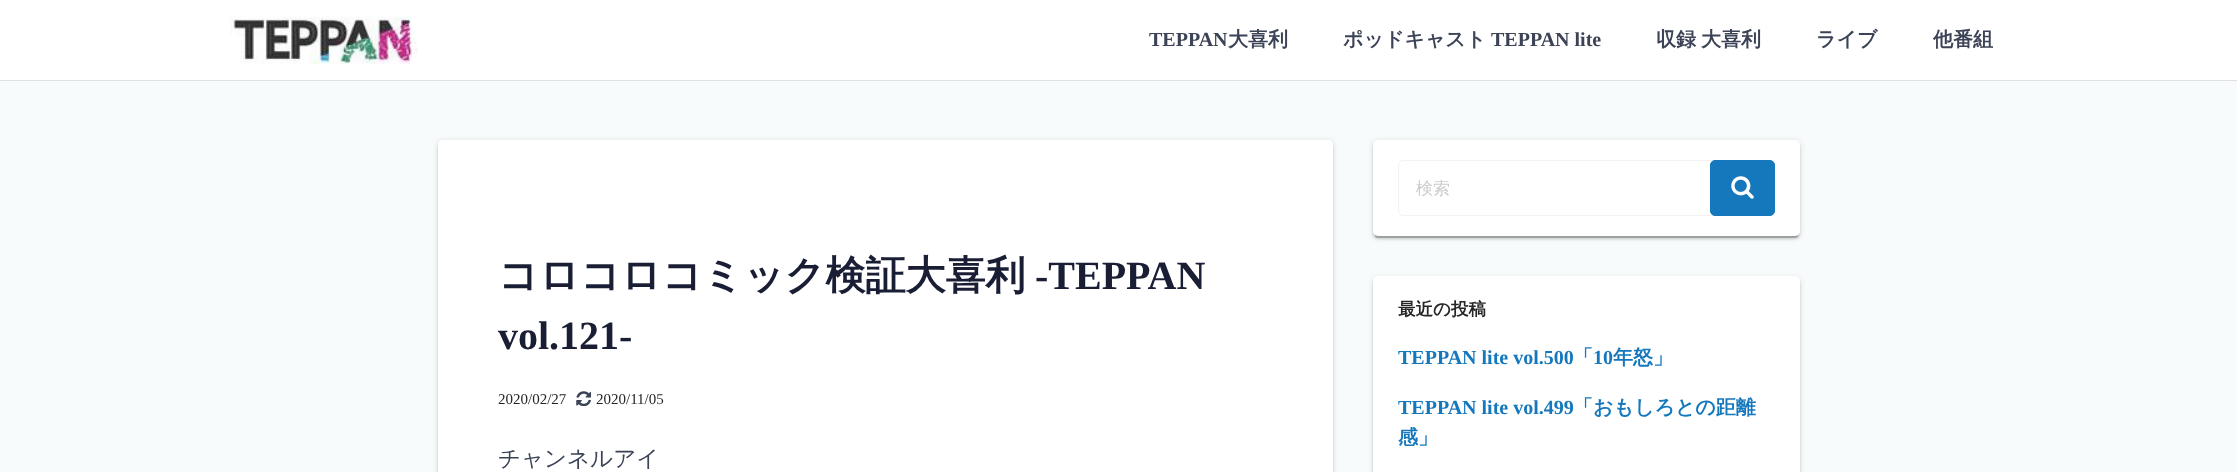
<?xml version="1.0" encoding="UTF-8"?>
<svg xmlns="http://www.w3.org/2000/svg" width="2237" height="472">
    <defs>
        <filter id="blur1" x="-50%" y="-200%" width="200%" height="500%"><feGaussianBlur stdDeviation="0.5"/></filter>
        <filter id="blur2" x="-50%" y="-200%" width="200%" height="500%"><feGaussianBlur stdDeviation="3"/></filter>
        <filter id="blur3" x="-50%" y="-200%" width="200%" height="500%"><feGaussianBlur stdDeviation="1"/></filter>
    </defs>
    <rect width="100%" height="100%" fill="#F8FBFB"/>
    <rect x="0" y="1" width="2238" height="80" fill="#000000" fill-opacity="0.1" filter="url(#blur1)"/>
    <rect x="0" y="0" width="2237" height="80" fill="#FFFFFF"/>
    <image x="230" y="16" width="188" height="48" href="img_01.png"/>
    <text x="1149" y="46" font-family="Liberation Serif" font-size="20" font-weight="700" fill="#3C4356">TEPPAN</text>
    <text x="1228" y="46" font-family="WenQuanYi Zen Hei" font-size="20" font-weight="700" fill="#3C4356">大喜利</text>
    <text x="1343" y="46" font-family="WenQuanYi Zen Hei" font-size="20" font-weight="700" fill="#3C4356">ポッドキャスト</text>
    <text x="1491" y="46" font-family="Liberation Serif" font-size="20" font-weight="700" fill="#3C4356">TEPPAN lite</text>
    <text x="1656" y="46" word-spacing="-1" font-family="WenQuanYi Zen Hei" font-size="20" font-weight="700" fill="#3C4356">収録 大喜利</text>
    <text x="1816" y="46" font-family="WenQuanYi Zen Hei" font-size="20" font-weight="700" fill="#3C4356">ライブ</text>
    <text x="1933" y="46" font-family="WenQuanYi Zen Hei" font-size="20" font-weight="700" fill="#3C4356">他番組</text>
    <rect x="438" y="141" width="895" height="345" rx="5" fill="#000000" fill-opacity="0.12" filter="url(#blur2)"/>
    <rect x="438" y="143" width="895" height="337" rx="5" fill="#000000" fill-opacity="0.14" filter="url(#blur3)"/>
    <rect x="438" y="140" width="895" height="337" rx="5" fill="#FFFFFF"/>
    <text x="498" y="289" font-family="WenQuanYi Zen Hei" font-size="40" font-weight="700" fill="#1A1E35">コロコロコミック検証大喜利</text>
    <text x="1035" y="289" font-family="Liberation Serif" font-size="40" font-weight="700" fill="#1A1E35">-TEPPAN</text>
    <text x="498" y="349" font-family="Liberation Serif" font-size="40" font-weight="700" fill="#1A1E35">vol.121-</text>
    <text x="498" y="404" font-family="Liberation Serif" font-size="15" fill="#262626">2020/02/27</text>
    <image x="576" y="391" width="15" height="15" href="img_02.png"/>
    <text x="596" y="404" font-family="Liberation Serif" font-size="15" fill="#262626">2020/11/05</text>
    <text x="498" y="466" font-family="WenQuanYi Zen Hei" font-size="22.5" font-weight="500" fill="#3C4356">チャンネルアイ</text>
    <rect x="1375" y="146" width="423" height="92" rx="2.5" fill="#000000" fill-opacity="0.2" filter="url(#blur1)"/>
    <rect x="1373" y="141" width="427" height="97" rx="5" fill="#000000" fill-opacity="0.12" filter="url(#blur2)"/>
    <rect x="1373" y="143" width="427" height="96" rx="5" fill="#000000" fill-opacity="0.14" filter="url(#blur3)"/>
    <rect x="1373" y="140" width="427" height="96" rx="5" fill="#FFFFFF"/>
    <rect x="1398.5" y="160.5" width="376" height="55" rx="4.5" fill="none" stroke="#F2F2F2"/>
    <text x="1416" y="194" font-family="WenQuanYi Zen Hei" font-size="17" font-weight="500" fill="#CCCCCC">検索</text>
    <rect x="1710.5" y="160.5" width="64" height="55" rx="4.5" fill="#1578BD" stroke="#1578BD"/>
    <image x="1731" y="176" width="23" height="23" href="img_03.png"/>
    <rect x="1373" y="278" width="427" height="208" rx="5" fill="#000000" fill-opacity="0.12" filter="url(#blur2)"/>
    <rect x="1373" y="279" width="427" height="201" rx="5" fill="#000000" fill-opacity="0.14" filter="url(#blur3)"/>
    <rect x="1373" y="276" width="427" height="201" rx="5" fill="#FFFFFF"/>
    <text x="1398" y="315" font-family="WenQuanYi Zen Hei" font-size="17.5" font-weight="700" fill="#262626">最近の投稿</text>
    <text x="1398" y="364" font-family="Liberation Serif" font-size="20" font-weight="700" fill="#1578BD">TEPPAN lite vol.500</text>
    <text x="1573" y="364" font-family="WenQuanYi Zen Hei" font-size="20" font-weight="700" fill="#1578BD">「</text>
    <text x="1593" y="364" font-family="Liberation Serif" font-size="20" font-weight="700" fill="#1578BD">10</text>
    <text x="1613" y="364" font-family="WenQuanYi Zen Hei" font-size="20" font-weight="700" fill="#1578BD">年怒」</text>
    <text x="1398" y="414" font-family="Liberation Serif" font-size="20" font-weight="700" fill="#1578BD">TEPPAN lite vol.499</text>
    <text x="1573" y="414" font-family="WenQuanYi Zen Hei" font-size="20" font-weight="700" fill="#1578BD">「おもしろとの距離</text>
    <text x="1398" y="444" font-family="WenQuanYi Zen Hei" font-size="20" font-weight="700" fill="#1578BD">感」</text>
</svg>
